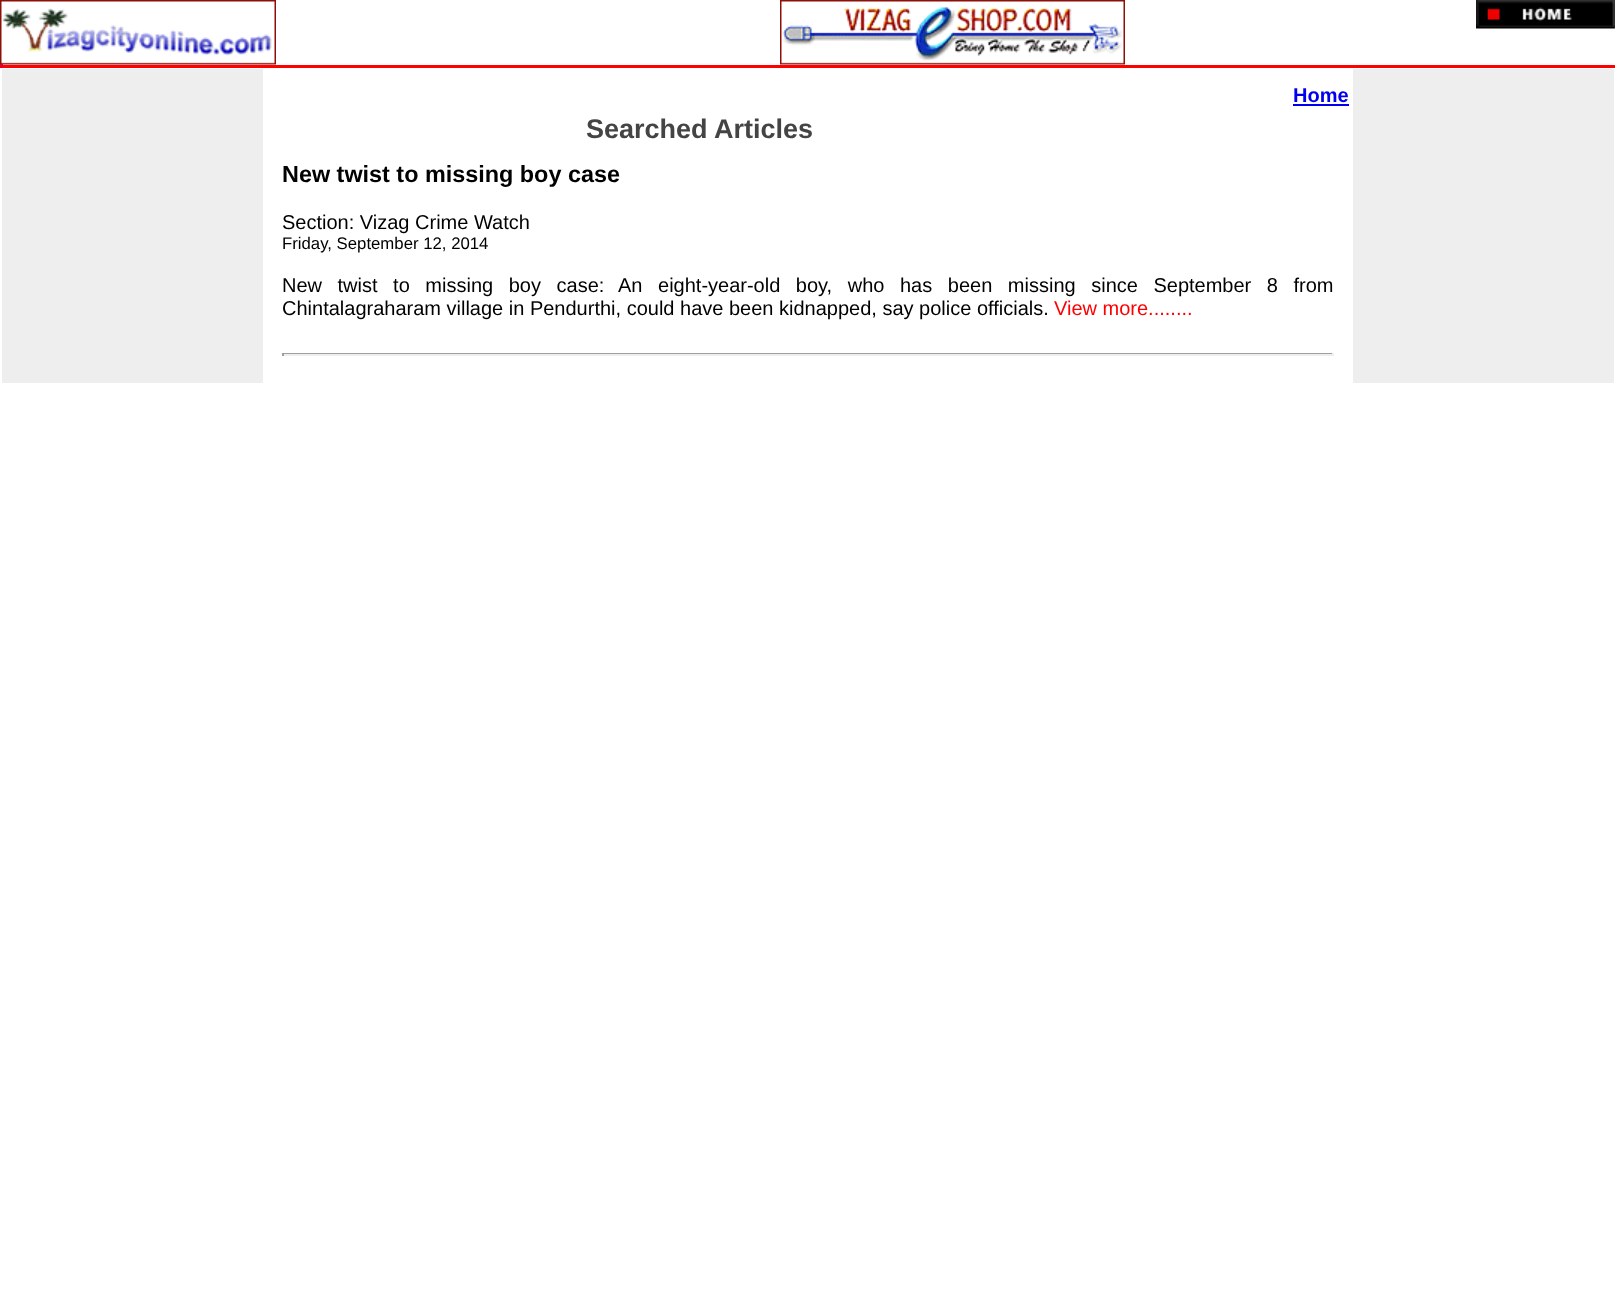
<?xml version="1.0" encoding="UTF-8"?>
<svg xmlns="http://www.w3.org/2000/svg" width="1615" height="1300">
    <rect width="100%" height="100%" fill="#FFFFFF"/>
    <image x="0" y="0" width="276" height="65" href="img_01.png"/>
    <image x="780" y="0" width="345" height="65" href="img_02.png"/>
    <image x="1476" y="0" width="139" height="29" href="img_03.png"/>
    <rect x="0" y="65" width="1615" height="3" fill="#FF0000"/>
    <rect x="0" y="64" width="3" height="4" fill="#DE0029"/>
    <rect x="2" y="69" width="261" height="314" fill="#EEEEEE"/>
    <text x="1293" y="102" font-family="Liberation Sans" font-size="20" font-weight="700" fill="#0000EE">Home</text>
    <rect x="1293" y="104" width="56" height="2" fill="#0000EE"/>
    <text x="586" y="138" font-family="Liberation Sans" font-size="27" font-weight="700" fill="#444444">Searched Articles</text>
    <text x="282" y="182" font-family="Liberation Sans" font-size="23.4" font-weight="700" fill="#000000">New twist to missing boy case</text>
    <text x="282" y="229" font-family="Liberation Sans" font-size="20" fill="#000000">Section: Vizag Crime Watch</text>
    <text x="282" y="249" font-family="Liberation Sans" font-size="16.75" fill="#000000">Friday, September 12, 2014</text>
    <text x="282" y="292" word-spacing="10" font-family="Liberation Sans" font-size="20" fill="#000000">New twist to missing boy case:</text>
    <text x="618" y="292" word-spacing="10" font-family="Liberation Sans" font-size="20" fill="#000000">An eight-year-old boy, who has been missing since September 8 from</text>
    <text x="282" y="315" font-family="Liberation Sans" font-size="20" fill="#000000">Chintalagraharam village in Pendurthi, could have been kidnapped, say police officials.</text>
    <text x="1054" y="315" font-family="Liberation Sans" font-size="20" fill="#FF0000">View more........</text>
    <rect x="282" y="353" width="1052" height="1" fill="#9F9F9F"/>
    <rect x="1332" y="353" width="2" height="3" fill="#EEEEEE"/>
    <rect x="282" y="354" width="1052" height="2" fill="#EEEEEE"/>
    <rect x="282" y="353" width="2" height="3" fill="#9F9F9F"/>
    <rect x="1353" y="69" width="261" height="314" fill="#EEEEEE"/>
</svg>
